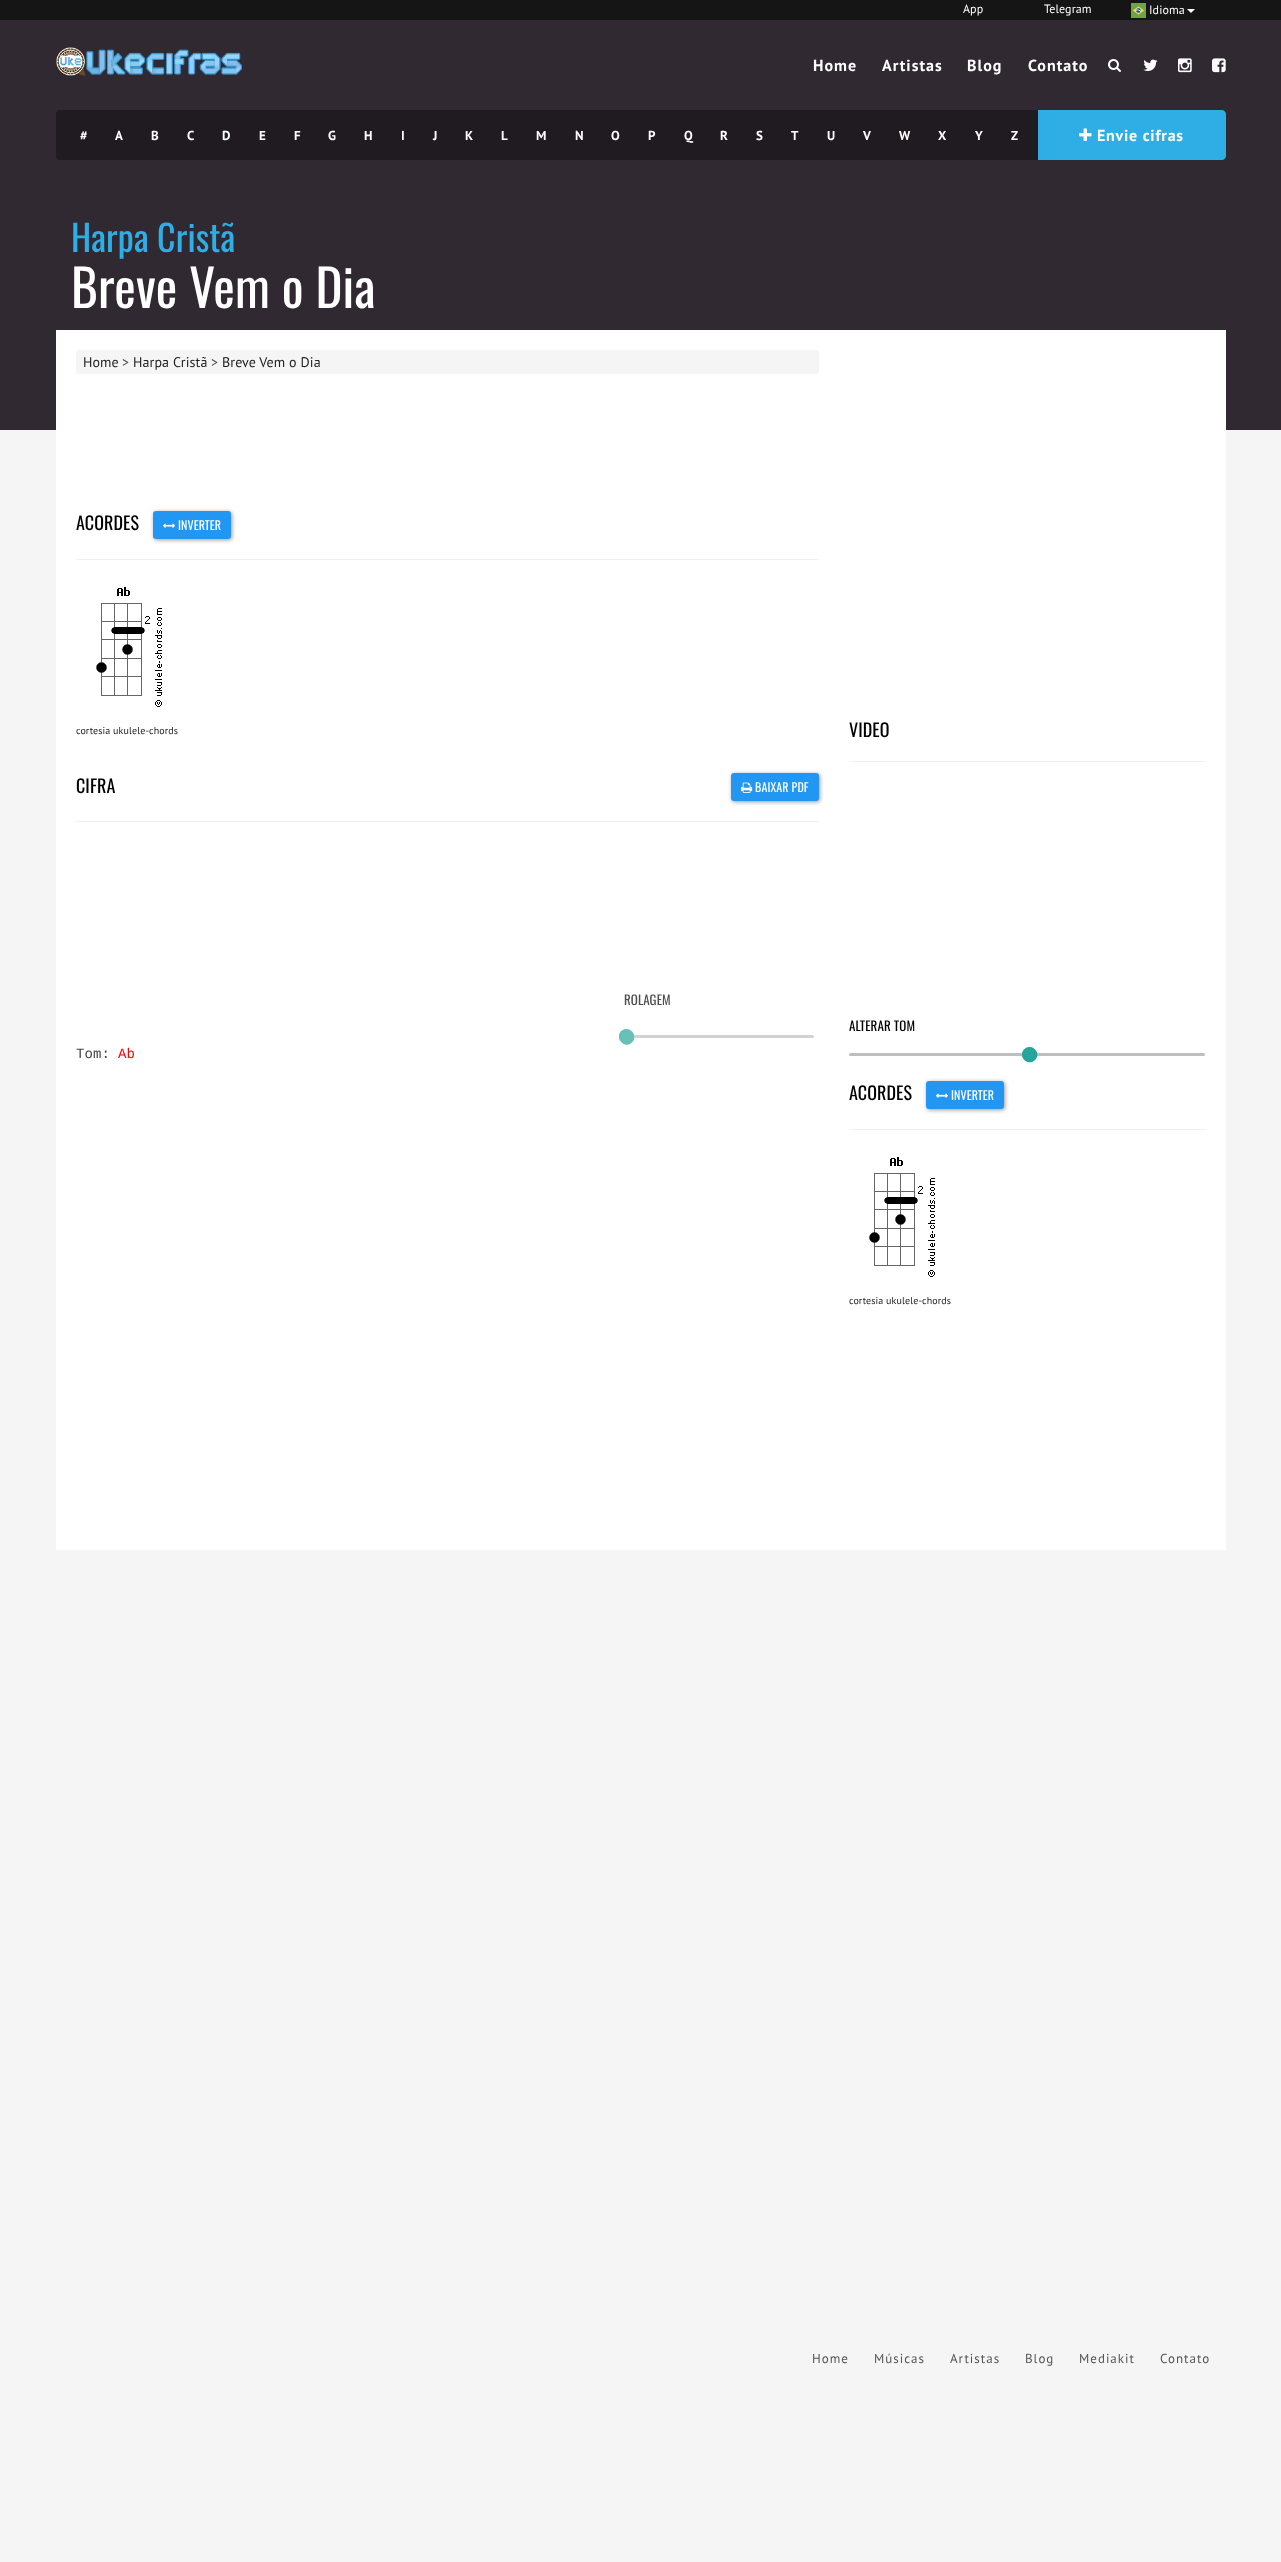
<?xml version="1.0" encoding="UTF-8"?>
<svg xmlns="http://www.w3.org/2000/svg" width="1281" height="2562">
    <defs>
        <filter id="blur1" x="-50%" y="-200%" width="200%" height="500%"><feGaussianBlur stdDeviation="2"/></filter>
    </defs>
    <rect width="100%" height="100%" fill="#F5F5F5"/>
    <rect x="0" y="0" width="1281" height="20" fill="#151515"/>
    <text x="963" y="13" font-family="PT Sans" font-size="12" letter-spacing="0.1" fill="#FFFFFF">App</text>
    <text x="1044" y="13" font-family="PT Sans" font-size="12" letter-spacing="0.1" fill="#FFFFFF">Telegram</text>
    <image x="1131" y="3" width="15" height="15" href="img_01.png"/>
    <text x="1149" y="14" font-family="PT Sans" font-size="12" letter-spacing="0.1" fill="#FFFFFF">Idioma</text>
    <path d="M 1187 9 H 1195 L 1191 13 Z" fill="#FFFFFF"/>
    <rect x="0" y="20" width="1281" height="410" fill="#302932"/>
    <image x="56" y="47" width="186" height="29" href="img_02.png"/>
    <text x="813" y="71" font-family="PT Sans" font-size="16" font-weight="700" letter-spacing="1" fill="#FFFFFF">Home</text>
    <text x="882" y="71" font-family="PT Sans" font-size="16" font-weight="700" letter-spacing="1" fill="#FFFFFF">Artistas</text>
    <text x="967" y="71" font-family="PT Sans" font-size="16" font-weight="700" letter-spacing="1" fill="#FFFFFF">Blog</text>
    <text x="1028" y="71" font-family="PT Sans" font-size="16" font-weight="700" letter-spacing="1" fill="#FFFFFF">Contato</text>
    <image x="1108" y="59" width="13" height="13" href="img_03.png"/>
    <image x="1143" y="59" width="15" height="12" href="img_04.png"/>
    <image x="1178" y="58" width="14" height="15" href="img_05.png"/>
    <image x="1212" y="58" width="14" height="15" href="img_06.png"/>
    <rect x="56" y="110" width="1170" height="50" rx="4" fill="#1F1B20"/>
    <text x="80" y="140" font-family="PT Sans" font-size="13" font-weight="700" letter-spacing="0.1" fill="#FFFFFF">#</text>
    <text x="115" y="140" font-family="PT Sans" font-size="13" font-weight="700" letter-spacing="0.1" fill="#FFFFFF">A</text>
    <text x="151" y="140" font-family="PT Sans" font-size="13" font-weight="700" letter-spacing="0.1" fill="#FFFFFF">B</text>
    <text x="187" y="140" font-family="PT Sans" font-size="13" font-weight="700" letter-spacing="0.1" fill="#FFFFFF">C</text>
    <text x="222" y="140" font-family="PT Sans" font-size="13" font-weight="700" letter-spacing="0.1" fill="#FFFFFF">D</text>
    <text x="259" y="140" font-family="PT Sans" font-size="13" font-weight="700" letter-spacing="0.1" fill="#FFFFFF">E</text>
    <text x="294" y="140" font-family="PT Sans" font-size="13" font-weight="700" letter-spacing="0.1" fill="#FFFFFF">F</text>
    <text x="328" y="140" font-family="PT Sans" font-size="13" font-weight="700" letter-spacing="0.1" fill="#FFFFFF">G</text>
    <text x="364" y="140" font-family="PT Sans" font-size="13" font-weight="700" letter-spacing="0.1" fill="#FFFFFF">H</text>
    <text x="401" y="140" font-family="PT Sans" font-size="13" font-weight="700" letter-spacing="0.1" fill="#FFFFFF">I</text>
    <text x="433" y="140" font-family="PT Sans" font-size="13" font-weight="700" letter-spacing="0.1" fill="#FFFFFF">J</text>
    <text x="465" y="140" font-family="PT Sans" font-size="13" font-weight="700" letter-spacing="0.1" fill="#FFFFFF">K</text>
    <text x="501" y="140" font-family="PT Sans" font-size="13" font-weight="700" letter-spacing="0.1" fill="#FFFFFF">L</text>
    <text x="536" y="140" font-family="PT Sans" font-size="13" font-weight="700" letter-spacing="0.1" fill="#FFFFFF">M</text>
    <text x="575" y="140" font-family="PT Sans" font-size="13" font-weight="700" letter-spacing="0.1" fill="#FFFFFF">N</text>
    <text x="611" y="140" font-family="PT Sans" font-size="13" font-weight="700" letter-spacing="0.1" fill="#FFFFFF">O</text>
    <text x="648" y="140" font-family="PT Sans" font-size="13" font-weight="700" letter-spacing="0.1" fill="#FFFFFF">P</text>
    <text x="684" y="140" font-family="PT Sans" font-size="13" font-weight="700" letter-spacing="0.1" fill="#FFFFFF">Q</text>
    <text x="720" y="140" font-family="PT Sans" font-size="13" font-weight="700" letter-spacing="0.1" fill="#FFFFFF">R</text>
    <text x="756" y="140" font-family="PT Sans" font-size="13" font-weight="700" letter-spacing="0.1" fill="#FFFFFF">S</text>
    <text x="791" y="140" font-family="PT Sans" font-size="13" font-weight="700" letter-spacing="0.1" fill="#FFFFFF">T</text>
    <text x="827" y="140" font-family="PT Sans" font-size="13" font-weight="700" letter-spacing="0.1" fill="#FFFFFF">U</text>
    <text x="863" y="140" font-family="PT Sans" font-size="13" font-weight="700" letter-spacing="0.1" fill="#FFFFFF">V</text>
    <text x="899" y="140" font-family="PT Sans" font-size="13" font-weight="700" letter-spacing="0.1" fill="#FFFFFF">W</text>
    <text x="938" y="140" font-family="PT Sans" font-size="13" font-weight="700" letter-spacing="0.1" fill="#FFFFFF">X</text>
    <text x="975" y="140" font-family="PT Sans" font-size="13" font-weight="700" letter-spacing="0.1" fill="#FFFFFF">Y</text>
    <text x="1011" y="140" font-family="PT Sans" font-size="13" font-weight="700" letter-spacing="0.1" fill="#FFFFFF">Z</text>
    <path d="M 1038 110 H 1222 C 1224 110 1226 112 1226 114 V 156 C 1226 158 1224 160 1222 160 H 1038 Z" fill="#2EAEE4"/>
    <image x="1079" y="128" width="13" height="13" href="img_07.png"/>
    <text x="1097" y="141" font-family="PT Sans" font-size="16" font-weight="700" letter-spacing="0.75" fill="#FFFFFF">Envie cifras</text>
    <text x="71" y="252" font-family="Oswald" font-size="36" letter-spacing="0.1" fill="#2EAEE4">Harpa Cristã</text>
    <text x="71" y="308" font-family="Oswald" font-size="51.25" letter-spacing="0.1" fill="#FFFFFF">Breve Vem o Dia</text>
    <rect x="56" y="330" width="1170" height="1220" fill="#FFFFFF"/>
    <rect x="76" y="350" width="743" height="24" rx="3" fill="#F5F5F5"/>
    <text x="83" y="367" font-family="PT Sans" font-size="14" letter-spacing="0.1" fill="#222222">Home</text>
    <text x="122" y="367" font-family="PT Sans" font-size="14" letter-spacing="0.1" fill="#444444">&gt;</text>
    <text x="133" y="367" font-family="PT Sans" font-size="14" letter-spacing="0.1" fill="#222222">Harpa Cristã</text>
    <text x="211" y="367" font-family="PT Sans" font-size="14" letter-spacing="0.1" fill="#444444">&gt;</text>
    <text x="222" y="367" font-family="PT Sans" font-size="14" letter-spacing="0.1" fill="#222222">Breve Vem o Dia</text>
    <rect x="76" y="559" width="743" height="1" fill="#F0F0F0"/>
    <text x="76" y="530" font-family="Oswald" font-size="18" letter-spacing="0.1" fill="#000000">ACORDES</text>
    <rect x="154" y="512" width="78" height="28" rx="3" fill="#000000" fill-opacity="0.4" filter="url(#blur1)"/>
    <rect x="153" y="511" width="78" height="28" rx="3" fill="#2196F3"/>
    <image x="163" y="523" width="12" height="5" href="img_08.png"/>
    <text x="178" y="530" font-family="Oswald" font-size="12" letter-spacing="0.1" fill="#FFFFFF">INVERTER</text>
    <image x="96" y="587" width="66" height="120" href="img_09.png"/>
    <text x="76" y="734" font-family="PT Sans" font-size="10" letter-spacing="0.1" fill="#222222">cortesia ukulele-chords</text>
    <rect x="76" y="821" width="743" height="1" fill="#F0F0F0"/>
    <text x="76" y="793" font-family="Oswald" font-size="18" letter-spacing="0.1" fill="#000000">CIFRA</text>
    <rect x="732" y="774" width="88" height="28" rx="3" fill="#000000" fill-opacity="0.4" filter="url(#blur1)"/>
    <rect x="731" y="773" width="88" height="28" rx="3" fill="#2196F3"/>
    <image x="741" y="782" width="12" height="11" href="img_10.png"/>
    <text x="755" y="792" font-family="Oswald" font-size="12" letter-spacing="0.1" fill="#FFFFFF">BAIXAR PDF</text>
    <text x="624" y="1005" font-family="Oswald" font-size="13" letter-spacing="0.1" fill="#4D4D4D">ROLAGEM</text>
    <rect x="624" y="1035" width="190" height="3" rx="1.5" fill="#D2D2D2"/>
    <circle cx="626.5" cy="1036.5" r="7.5" fill="#67C1B8"/>
    <path d="M 621 1031.5 C 628 1025 639 1035.5 632 1042.5 C 625 1049.5 614.5 1038.5 621 1031.5 Z" fill="#67C1B8"/>
    <text x="76" y="1058" font-family="Liberation Mono" font-size="14" letter-spacing="0.1" fill="#444444">Tom:</text>
    <text x="118" y="1058" font-family="Liberation Mono" font-size="14" letter-spacing="0.1" fill="#FF0000">Ab</text>
    <rect x="849" y="761" width="356" height="1" fill="#F0F0F0"/>
    <text x="849" y="737" font-family="Oswald" font-size="18" letter-spacing="0.1" fill="#000000">VIDEO</text>
    <text x="849" y="1031" font-family="Oswald" font-size="13" letter-spacing="0.1" fill="#000000">ALTERAR TOM</text>
    <rect x="849" y="1053" width="356" height="3" rx="1.5" fill="#BFBFBF"/>
    <circle cx="1029.5" cy="1054.5" r="7.5" fill="#26A69A"/>
    <path d="M 1024.5 1049.5 C 1031.5 1042.5 1042 1053 1035 1060 C 1028 1067 1017.5 1056.5 1024.5 1049.5 Z" fill="#26A69A"/>
    <rect x="849" y="1129" width="357" height="1" fill="#F0F0F0"/>
    <text x="849" y="1100" font-family="Oswald" font-size="18" letter-spacing="0.1" fill="#000000">ACORDES</text>
    <rect x="927" y="1082" width="78" height="28" rx="3" fill="#000000" fill-opacity="0.4" filter="url(#blur1)"/>
    <rect x="926" y="1081" width="78" height="28" rx="3" fill="#2196F3"/>
    <image x="936" y="1093" width="12" height="5" href="img_08.png"/>
    <text x="951" y="1100" font-family="Oswald" font-size="12" letter-spacing="0.1" fill="#FFFFFF">INVERTER</text>
    <image x="869" y="1157" width="66" height="120" href="img_09.png"/>
    <text x="849" y="1304" font-family="PT Sans" font-size="10" letter-spacing="0.1" fill="#222222">cortesia ukulele-chords</text>
    <text x="812" y="2363" font-family="PT Sans" font-size="13" letter-spacing="1" fill="#555555">Home</text>
    <text x="874" y="2363" font-family="PT Sans" font-size="13" letter-spacing="1" fill="#555555">Músicas</text>
    <text x="950" y="2363" font-family="PT Sans" font-size="13" letter-spacing="1" fill="#555555">Artistas</text>
    <text x="1025" y="2363" font-family="PT Sans" font-size="13" letter-spacing="1" fill="#555555">Blog</text>
    <text x="1079" y="2363" font-family="PT Sans" font-size="13" letter-spacing="1" fill="#555555">Mediakit</text>
    <text x="1160" y="2363" font-family="PT Sans" font-size="13" letter-spacing="1" fill="#555555">Contato</text>
</svg>
